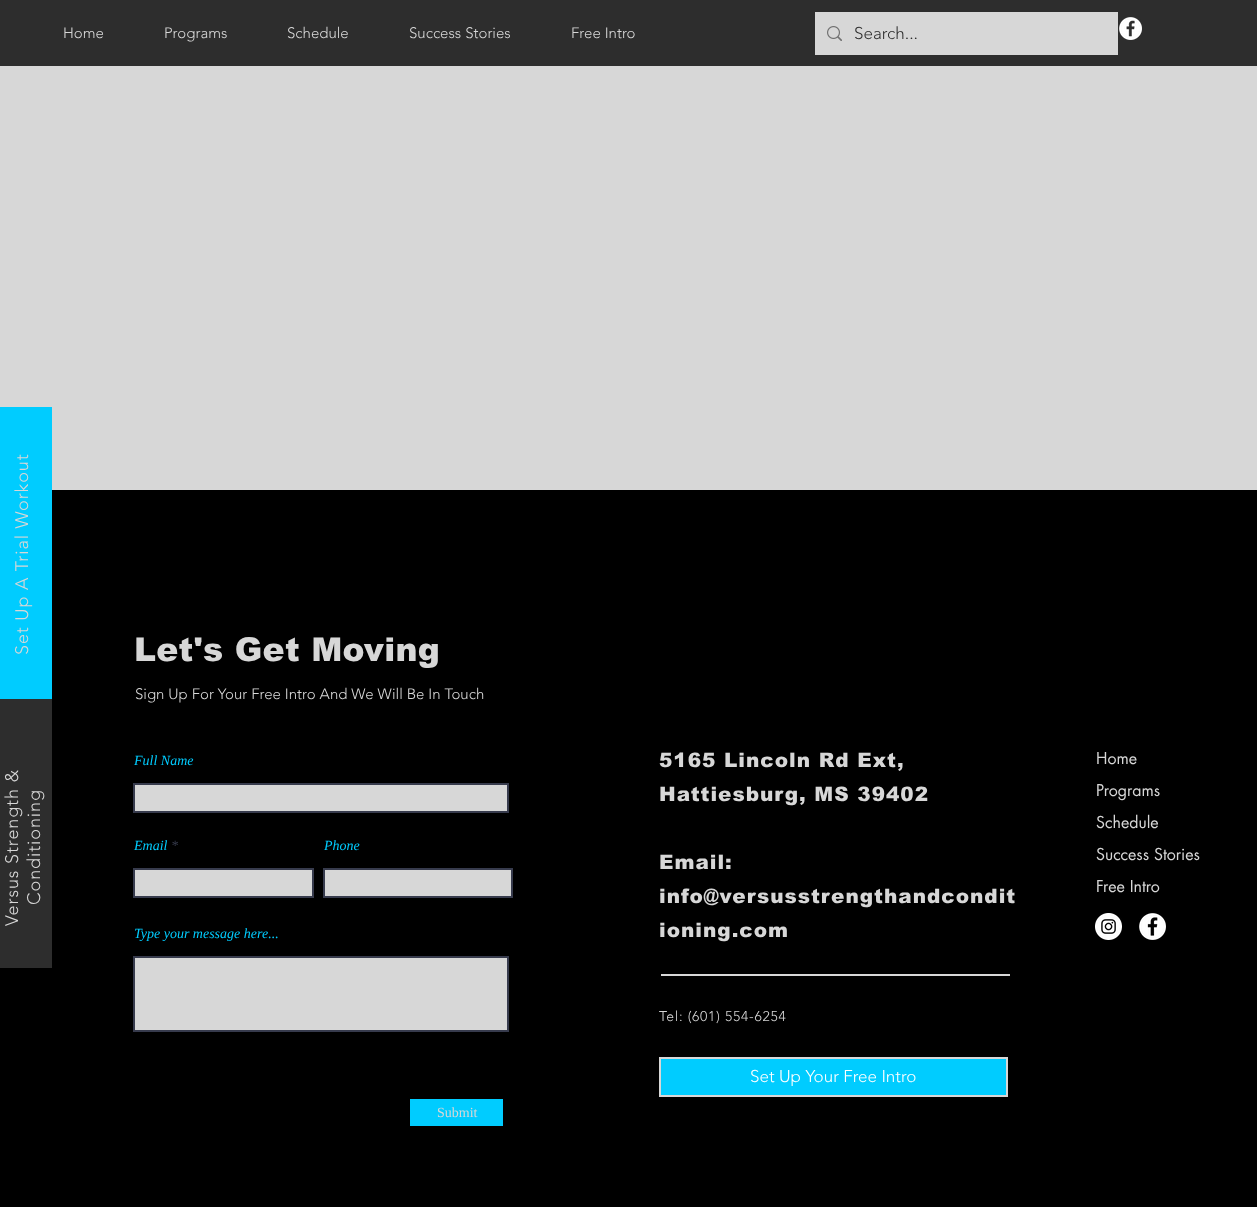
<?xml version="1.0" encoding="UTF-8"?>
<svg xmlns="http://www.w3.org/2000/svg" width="1257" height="1207">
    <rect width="100%" height="100%" fill="#D7D7D7"/>
    <rect x="0" y="0" width="1257" height="66" fill="#2D2D2D"/>
    <text x="63" y="38" font-family="'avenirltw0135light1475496'" font-size="15" font-weight="300" fill="#D7D7D7">Home</text>
    <text x="164" y="38" font-family="'avenirltw0135light1475496'" font-size="15" font-weight="300" fill="#D7D7D7">Programs</text>
    <text x="287" y="38" font-family="'avenirltw0135light1475496'" font-size="15" font-weight="300" fill="#D7D7D7">Schedule</text>
    <text x="409" y="38" font-family="'avenirltw0135light1475496'" font-size="15" font-weight="300" fill="#D7D7D7">Success Stories</text>
    <text x="571" y="38" font-family="'avenirltw0135light1475496'" font-size="15" font-weight="300" fill="#D7D7D7">Free Intro</text>
    <image x="1119" y="17" width="23" height="23" href="img_01.png"/>
    <rect x="815" y="12" width="303" height="43" fill="#D7D7D7"/>
    <image x="827" y="26" width="15" height="15" href="img_02.png"/>
    <text x="854" y="39" font-family="'avenirltw0135light1475496'" font-size="17" font-weight="300" fill="#2D2D2D">Search...</text>
    <rect x="0" y="490" width="1257" height="710" fill="#000000"/>
    <rect x="0" y="407" width="52" height="292" fill="#00CCFF"/>
    <text x="28" y="655" transform="rotate(-90 28 655)" font-family="'avenirltw0135light1475496'" font-size="18" font-weight="300" letter-spacing="0.9" fill="#D7D7D7">Set Up A Trial Workout</text>
    <rect x="0" y="699" width="52" height="269" fill="#2D2D2D"/>
    <text x="18" y="926" transform="rotate(-90 18 926)" font-family="'avenirltw0135light1475496'" font-size="18" font-weight="300" letter-spacing="0.9" fill="#D7D7D7">Versus Strength &amp;</text>
    <text x="40" y="905" transform="rotate(-90 40 905)" font-family="'avenirltw0135light1475496'" font-size="18" font-weight="300" letter-spacing="0.9" fill="#D7D7D7">Conditioning</text>
    <text x="134" y="661" font-family="arial" font-size="33" font-weight="900" letter-spacing="0.3" fill="#D7D7D7">Let's Get Moving</text>
    <text x="135" y="699" font-family="'avenirltw0135light1475496'" font-size="15" font-weight="300" fill="#D7D7D7">Sign Up For Your Free Intro And We Will Be In Touch</text>
    <text x="134" y="765" font-family="Liberation Serif" font-size="14" font-style="italic" fill="#00CCFF">Full Name</text>
    <rect x="134" y="784" width="374" height="28" fill="#D7D7D7" stroke="#373B4D" stroke-width="2"/>
    <text x="134" y="850" font-family="Liberation Serif" font-size="14" font-style="italic" fill="#00CCFF">Email</text>
    <text x="171" y="850" font-family="Liberation Serif" font-size="14" font-style="italic" fill="#373B4D">*</text>
    <rect x="134" y="869" width="179" height="28" fill="#D7D7D7" stroke="#373B4D" stroke-width="2"/>
    <text x="324" y="850" font-family="Liberation Serif" font-size="14" font-style="italic" fill="#00CCFF">Phone</text>
    <rect x="324" y="869" width="188" height="28" fill="#D7D7D7" stroke="#373B4D" stroke-width="2"/>
    <text x="134" y="938" font-family="Liberation Serif" font-size="14" font-style="italic" fill="#00CCFF">Type your message here...</text>
    <rect x="134" y="957" width="374" height="74" fill="#D7D7D7" stroke="#373B4D" stroke-width="2"/>
    <rect x="410" y="1099" width="93" height="27" fill="#00CCFF"/>
    <text x="437" y="1117" font-family="Liberation Serif" font-size="14" fill="#D7D7D7">Submit</text>
    <text font-family="arial" font-size="20" font-weight="900" letter-spacing="1" fill="#D7D7D7">
        <tspan x="659" y="767">5165 Lincoln Rd Ext,</tspan>
        <tspan x="659" y="801">Hattiesburg, MS 39402</tspan>
    </text>
    <text font-family="arial" font-size="20" font-weight="900" letter-spacing="1" fill="#D7D7D7">
        <tspan x="659" y="869">Email:</tspan>
        <tspan x="659" y="903">info@versusstrengthandcondit</tspan>
        <tspan x="659" y="937">ioning.com</tspan>
    </text>
    <rect x="661" y="974" width="349" height="2" fill="#D7D7D7"/>
    <text x="659" y="1021" font-family="'avenirltw0135light1475496'" font-size="14" font-weight="300" letter-spacing="0.75" fill="#D7D7D7">Tel: (601) 554-6254</text>
    <rect x="660" y="1058" width="347" height="38" fill="#00CCFF" stroke="#D7D7D7" stroke-width="2"/>
    <text x="750" y="1082" font-family="'avenirltw0135light1475496'" font-size="17" font-weight="300" fill="#FFFFFF">Set Up Your Free Intro</text>
    <text x="1096" y="764" font-family="futura" font-size="16" fill="#D7D7D7">Home</text>
    <text x="1096" y="796" font-family="futura" font-size="16" fill="#D7D7D7">Programs</text>
    <text x="1096" y="828" font-family="futura" font-size="16" fill="#D7D7D7">Schedule</text>
    <text x="1096" y="860" font-family="futura" font-size="16" fill="#D7D7D7">Success Stories</text>
    <text x="1096" y="892" font-family="futura" font-size="16" fill="#D7D7D7">Free Intro</text>
    <image x="1095" y="913" width="27" height="27" href="img_03.png"/>
    <image x="1139" y="913" width="27" height="27" href="img_04.png"/>
    <rect x="0" y="1200" width="1257" height="7" fill="#000000"/>
</svg>
